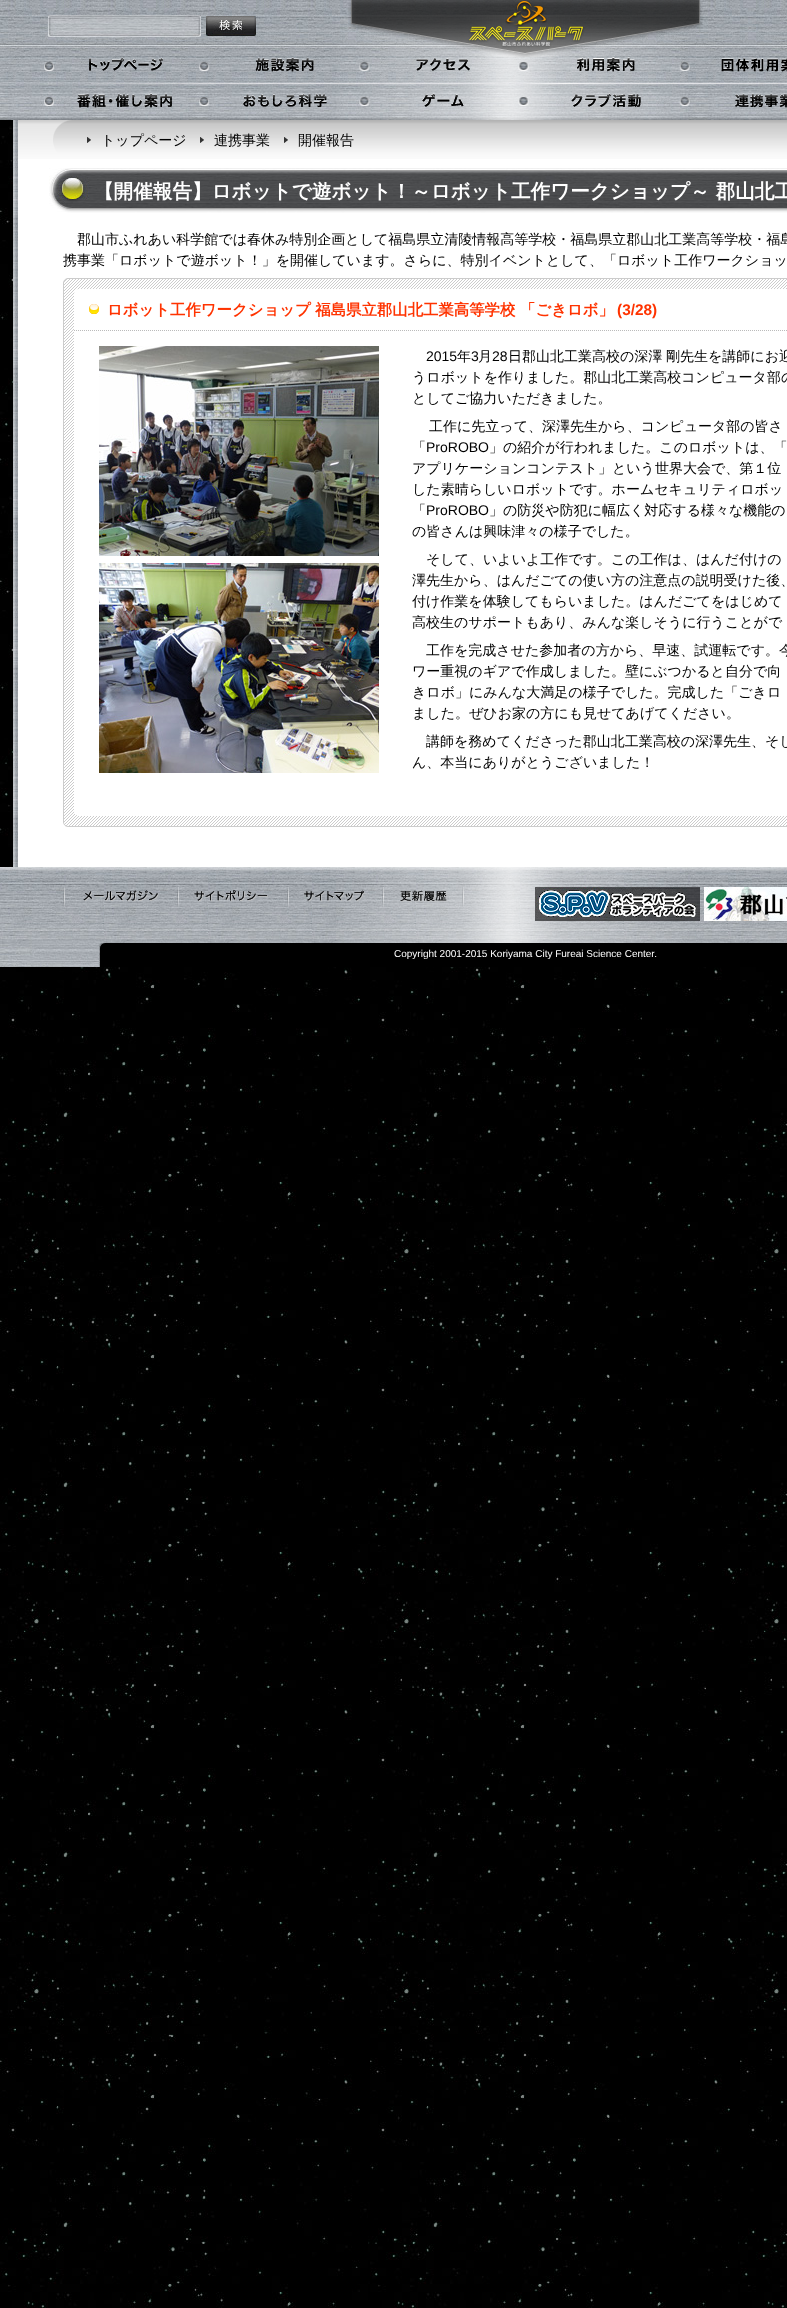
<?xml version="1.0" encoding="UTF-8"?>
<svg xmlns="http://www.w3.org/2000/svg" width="787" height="2308">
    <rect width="100%" height="100%" fill="#FFFFFF"/>
    <image x="0" y="120" width="787" height="2188" href="img_01.png"/>
    <image x="0" y="0" width="787" height="120" href="img_02.png"/>
    <image x="336" y="15" width="348" height="105" href="img_03.png"/>
    <image x="48" y="15" width="153" height="22" href="img_04.png"/>
    <image x="206" y="16" width="50" height="20" href="img_05.png"/>
    <image x="348" y="0" width="355" height="57" href="img_06.png"/>
    <image x="91" y="83" width="696" height="1" href="img_07.png"/>
    <image x="44" y="62" width="646" height="9" href="img_08.png"/>
    <image x="89" y="57" width="74" height="14" href="img_09.png"/>
    <image x="255" y="57" width="59" height="15" href="img_10.png"/>
    <image x="416" y="57" width="54" height="14" href="img_11.png"/>
    <image x="577" y="57" width="58" height="15" href="img_12.png"/>
    <image x="721" y="57" width="66" height="15" href="img_13.png"/>
    <image x="44" y="97" width="646" height="9" href="img_14.png"/>
    <image x="77" y="93" width="95" height="15" href="img_15.png"/>
    <image x="243" y="93" width="84" height="14" href="img_16.png"/>
    <image x="422" y="93" width="42" height="14" href="img_17.png"/>
    <image x="571" y="93" width="70" height="14" href="img_18.png"/>
    <image x="735" y="93" width="52" height="15" href="img_19.png"/>
    <rect x="18" y="122" width="769" height="745" fill="#FFFFFF"/>
    <image x="13" y="120" width="5" height="747" href="img_20.png"/>
    <image x="18" y="120" width="769" height="39" href="img_21.png"/>
    <image x="87" y="137" width="4" height="6" href="img_22.png"/>
    <text x="101" y="145" font-family="WenQuanYi Zen Hei" font-size="14" font-weight="500" fill="#000000">トップページ</text>
    <image x="200" y="137" width="4" height="6" href="img_22.png"/>
    <text x="214" y="145" font-family="WenQuanYi Zen Hei" font-size="14" font-weight="500" fill="#000000">連携事業</text>
    <image x="284" y="137" width="4" height="6" href="img_22.png"/>
    <text x="298" y="145" font-family="WenQuanYi Zen Hei" font-size="14" font-weight="500" fill="#000000">開催報告</text>
    <image x="49" y="168" width="738" height="45" href="img_23.png"/>
    <text x="94" y="198" font-family="WenQuanYi Zen Hei" font-size="19.6" font-weight="700" fill="#FFFFFF">【開催報告】ロボットで遊ボット！～ロボット工作ワークショップ～ 郡山北工</text>
    <text x="77" y="244" font-family="WenQuanYi Zen Hei" font-size="14" font-weight="500" fill="#000000">郡山市ふれあい科学館では春休み特別企画として福島県立清陵情報高等学校・福島県立郡山北工業高等学校・福島</text>
    <text x="63" y="265" font-family="WenQuanYi Zen Hei" font-size="14" font-weight="500" fill="#000000">携事業「ロボットで遊ボット！」を開催しています。さらに、特別イベントとして、「ロボット工作ワークショッ</text>
    <image x="63" y="278" width="724" height="549" href="img_24.png"/>
    <rect x="63.5" y="278.5" width="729" height="548" rx="4.5" fill="none" stroke="#CCCCCC"/>
    <rect x="74" y="289" width="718" height="527" rx="5" fill="#FFFFFF"/>
    <image x="89" y="304" width="10" height="10" href="img_25.png"/>
    <path d="M 74 330.5 H 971" fill="none" stroke="#BBBBBB" stroke-dasharray="1 1"/>
    <text x="107" y="315" font-family="WenQuanYi Zen Hei" font-size="15.4" font-weight="700" fill="#FF3300">ロボット工作ワークショップ 福島県立郡山北工業高等学校 「ごきロボ」</text>
    <text x="617" y="315" font-family="Liberation Sans" font-size="15.4" font-weight="700" fill="#FF3300">(3/28)</text>
    <image x="99" y="346" width="280" height="210" href="img_26.png"/>
    <image x="99" y="563" width="280" height="210" href="img_27.png"/>
    <text x="426" y="361" font-family="Liberation Sans" font-size="14" fill="#000000">2015</text>
    <text x="457" y="361" font-family="WenQuanYi Zen Hei" font-size="14" font-weight="500" fill="#000000">年</text>
    <text x="471" y="361" font-family="Liberation Sans" font-size="14" fill="#000000">3</text>
    <text x="478" y="361" font-family="WenQuanYi Zen Hei" font-size="14" font-weight="500" fill="#000000">月</text>
    <text x="492" y="361" font-family="Liberation Sans" font-size="14" fill="#000000">28</text>
    <text x="508" y="361" font-family="WenQuanYi Zen Hei" font-size="14" font-weight="500" fill="#000000">日郡山北工業高校の深澤</text>
    <text x="666" y="361" font-family="WenQuanYi Zen Hei" font-size="14" font-weight="500" fill="#000000">剛先生を講師にお迎</text>
    <text font-family="WenQuanYi Zen Hei" font-size="14" font-weight="500" fill="#000000">
        <tspan x="412" y="382">うロボットを作りました。郡山北工業高校コンピュータ部の</tspan>
        <tspan x="412" y="403">としてご協力いただきました。</tspan>
    </text>
    <text x="429" y="431" font-family="WenQuanYi Zen Hei" font-size="14" font-weight="500" fill="#000000">工作に先立って、深澤先生から、コンピュータ部の皆さ</text>
    <text x="412" y="452" font-family="WenQuanYi Zen Hei" font-size="14" font-weight="500" fill="#000000">「</text>
    <text x="426" y="452" font-family="Liberation Sans" font-size="14" fill="#000000">ProROBO</text>
    <text x="489" y="452" font-family="WenQuanYi Zen Hei" font-size="14" font-weight="500" fill="#000000">」の紹介が行われました。このロボットは、「</text>
    <text font-family="WenQuanYi Zen Hei" font-size="14" font-weight="500" fill="#000000">
        <tspan x="412" y="473">アプリケーションコンテスト」という世界大会で、第１位</tspan>
        <tspan x="412" y="494">した素晴らしいロボットです。ホームセキュリティロボッ</tspan>
        <tspan x="412" y="515">「</tspan>
    </text>
    <text x="426" y="515" font-family="Liberation Sans" font-size="14" fill="#000000">ProROBO</text>
    <text x="489" y="515" font-family="WenQuanYi Zen Hei" font-size="14" font-weight="500" fill="#000000">」の防災や防犯に幅広く対応する様々な機能の</text>
    <text x="412" y="536" font-family="WenQuanYi Zen Hei" font-size="14" font-weight="500" fill="#000000">の皆さんは興味津々の様子でした。</text>
    <text x="426" y="564" font-family="WenQuanYi Zen Hei" font-size="14" font-weight="500" fill="#000000">そして、いよいよ工作です。この工作は、はんだ付けの</text>
    <text font-family="WenQuanYi Zen Hei" font-size="14" font-weight="500" fill="#000000">
        <tspan x="412" y="585">澤先生から、はんだごての使い方の注意点の説明受けた後、</tspan>
        <tspan x="412" y="606">付け作業を体験してもらいました。はんだごてをはじめて</tspan>
        <tspan x="412" y="627">高校生のサポートもあり、みんな楽しそうに行うことがで</tspan>
    </text>
    <text x="426" y="655" font-family="WenQuanYi Zen Hei" font-size="14" font-weight="500" fill="#000000">工作を完成させた参加者の方から、早速、試運転です。今</text>
    <text font-family="WenQuanYi Zen Hei" font-size="14" font-weight="500" fill="#000000">
        <tspan x="412" y="676">ワー重視のギアで作成しました。壁にぶつかると自分で向</tspan>
        <tspan x="412" y="697">きロボ」にみんな大満足の様子でした。完成した「ごきロ</tspan>
        <tspan x="412" y="718">ました。ぜひお家の方にも見せてあげてください。</tspan>
    </text>
    <text x="426" y="746" font-family="WenQuanYi Zen Hei" font-size="14" font-weight="500" fill="#000000">講師を務めてくださった郡山北工業高校の深澤先生、そし</text>
    <text x="412" y="767" font-family="WenQuanYi Zen Hei" font-size="14" font-weight="500" fill="#000000">ん、本当にありがとうございました！</text>
    <image x="0" y="867" width="787" height="100" href="img_28.png"/>
    <image x="336" y="867" width="351" height="76" href="img_29.png"/>
    <image x="63" y="887" width="96" height="20" href="img_30.png"/>
    <image x="177" y="887" width="91" height="20" href="img_31.png"/>
    <image x="287" y="887" width="78" height="20" href="img_32.png"/>
    <image x="382" y="887" width="82" height="20" href="img_33.png"/>
    <image x="535" y="887" width="165" height="34" href="img_34.png"/>
    <image x="704" y="887" width="83" height="34" href="img_35.png"/>
    <image x="99" y="943" width="688" height="24" href="img_36.png"/>
    <text x="394" y="957" font-family="Liberation Sans" font-size="10" fill="#FFFFFF">Copyright 2001-2015 Koriyama City Fureai Science Center.</text>
</svg>
